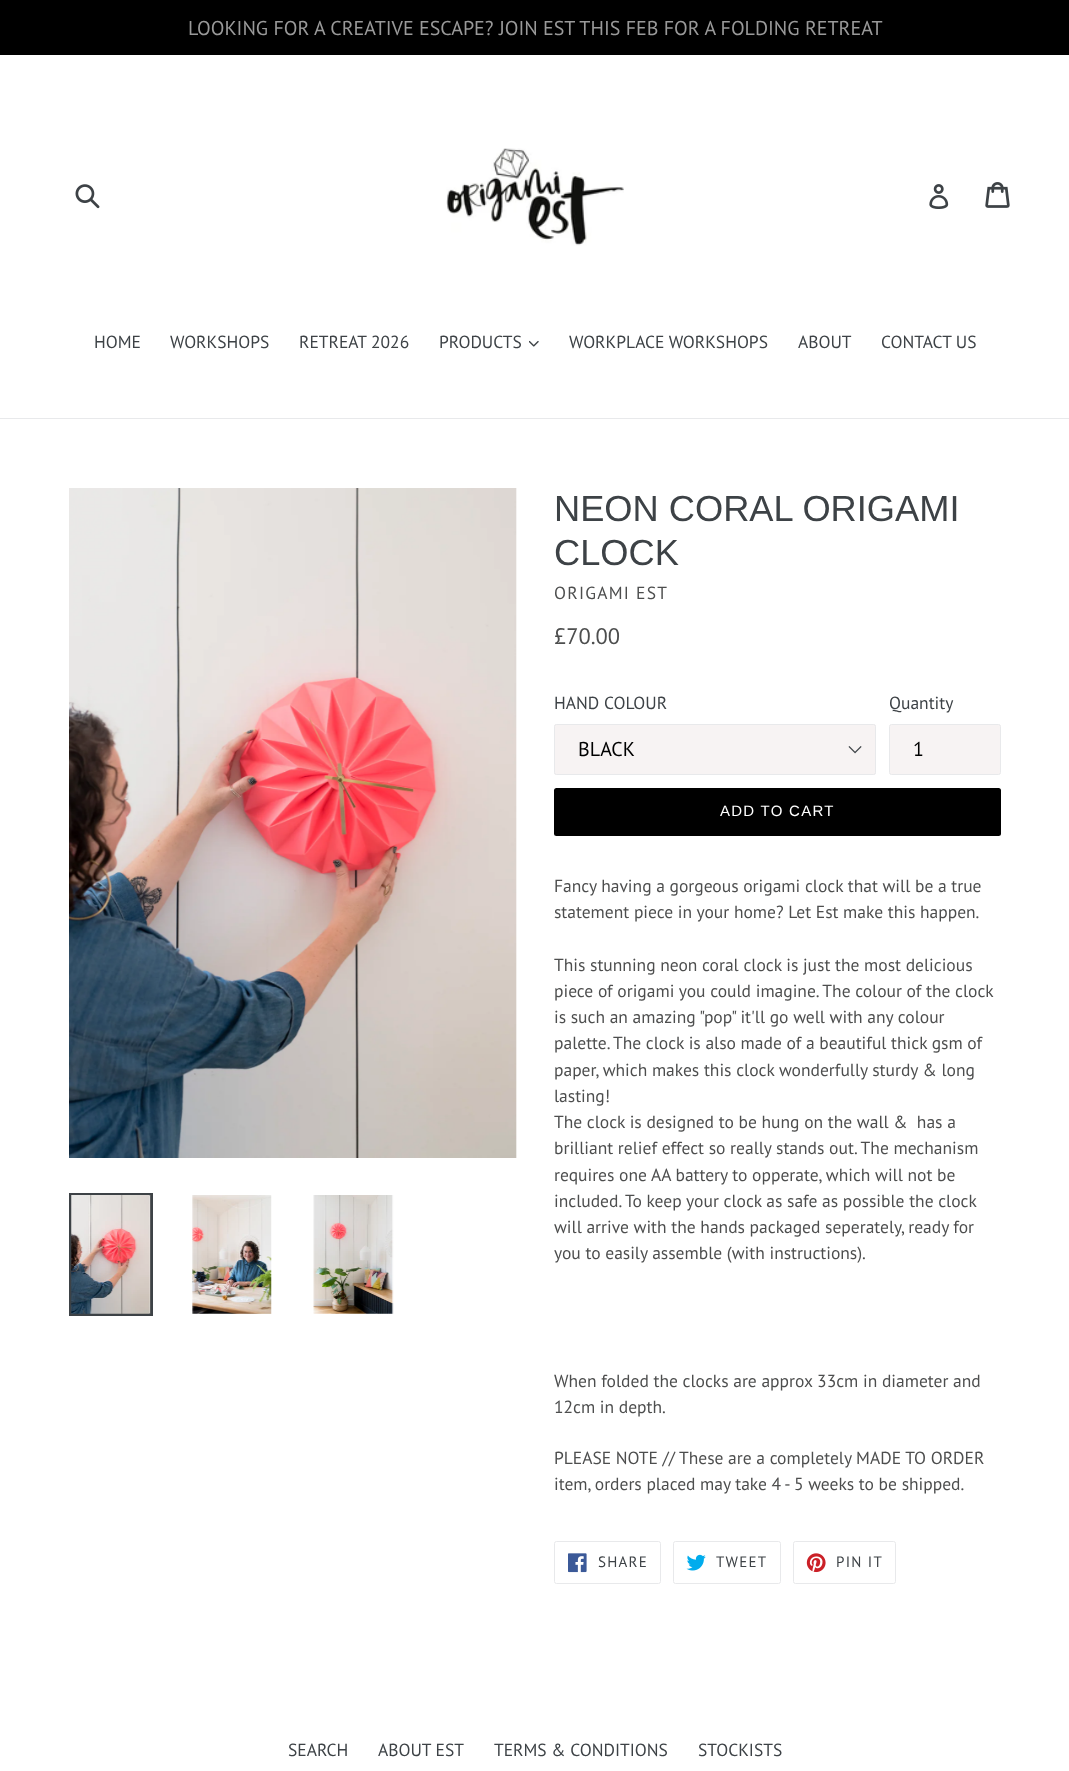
<?xml version="1.0" encoding="UTF-8"?>
<svg xmlns="http://www.w3.org/2000/svg" width="1069" height="1771">
    <rect width="100%" height="100%" fill="#FFFFFF"/>
    <rect x="0" y="0" width="1069" height="55" fill="#000000"/>
    <text x="188" y="35" font-family="PT Sans" font-size="20" fill="#999999">LOOKING FOR A CREATIVE ESCAPE? JOIN EST THIS FEB FOR A FOLDING RETREAT</text>
    <image x="75" y="184" width="25" height="25" href="img_01.png"/>
    <image x="446" y="148" width="178" height="98" href="img_02.png"/>
    <image x="929" y="184" width="20" height="25" href="img_03.png"/>
    <image x="985" y="182" width="25" height="26" href="img_04.png"/>
    <rect x="0" y="418" width="1069" height="1" fill="#E8E9EB"/>
    <text x="94" y="348" font-family="PT Sans" font-size="17.5" fill="#3D4246">HOME</text>
    <text x="170" y="348" font-family="PT Sans" font-size="17.5" fill="#3D4246">WORKSHOPS</text>
    <text x="299" y="348" font-family="PT Sans" font-size="17.5" fill="#3D4246">RETREAT 2026</text>
    <text x="439" y="348" font-family="PT Sans" font-size="17.5" fill="#3D4246">PRODUCTS</text>
    <image x="529" y="340" width="10" height="7" href="img_05.png"/>
    <text x="569" y="348" font-family="PT Sans" font-size="17.5" fill="#3D4246">WORKPLACE WORKSHOPS</text>
    <text x="798" y="348" font-family="PT Sans" font-size="17.5" fill="#3D4246">ABOUT</text>
    <text x="881" y="348" font-family="PT Sans" font-size="17.5" fill="#3D4246">CONTACT US</text>
    <image x="69" y="488" width="448" height="670" href="img_06.png"/>
    <rect x="70.5" y="1194.5" width="81" height="120" fill="none" stroke="#3D4246" stroke-width="3"/>
    <image x="71" y="1195" width="80" height="119" href="img_07.png"/>
    <image x="192" y="1195" width="80" height="119" href="img_08.png"/>
    <image x="313" y="1195" width="81" height="119" href="img_09.png"/>
    <text font-family="Liberation Sans" font-size="36.25" fill="#3D4246">
        <tspan x="554" y="521">NEON CORAL ORIGAMI</tspan>
        <tspan x="554" y="565">CLOCK</tspan>
    </text>
    <text x="554" y="599" font-family="PT Sans" font-size="17.5" letter-spacing="1.25" fill="#4D4E4E">ORIGAMI EST</text>
    <text x="554" y="644" font-family="PT Sans" font-size="22.5" fill="#4D4E4E">£70.00</text>
    <text x="554" y="709" font-family="PT Sans" font-size="17.5" fill="#3D4246">HAND COLOUR</text>
    <rect x="554" y="724" width="322" height="51" rx="2.5" fill="#F7F3F3"/>
    <image x="848" y="746" width="14" height="8" href="img_10.png"/>
    <rect x="554.5" y="724.5" width="321" height="50" rx="2" fill="none" stroke="#E8E9EB"/>
    <text x="578" y="756" font-family="PT Sans" font-size="20" fill="#000000">BLACK</text>
    <text x="889" y="709" font-family="PT Sans" font-size="17.5" fill="#3D4246">Quantity</text>
    <rect x="889.5" y="724.5" width="111" height="50" rx="2" fill="#F7F3F3" stroke="#E8E9EB"/>
    <text x="913" y="756" font-family="PT Sans" font-size="20" fill="#000000">1</text>
    <rect x="554" y="788" width="447" height="48" rx="2.5" fill="#000000"/>
    <text x="720" y="816" font-family="Liberation Sans" font-size="15" letter-spacing="1.25" fill="#FFFFFF">ADD TO CART</text>
    <text font-family="PT Sans" font-size="17.5" fill="#4D4E4E">
        <tspan x="554" y="892">Fancy having a gorgeous origami clock that will be a true</tspan>
        <tspan x="554" y="918">statement piece in your home? Let Est make this happen.</tspan>
    </text>
    <text font-family="PT Sans" font-size="17.5" fill="#4D4E4E">
        <tspan x="554" y="971">This stunning neon coral clock is just the most delicious</tspan>
        <tspan x="554" y="997">piece of origami you could imagine. The colour of the clock</tspan>
        <tspan x="554" y="1023">is such an amazing "pop" it'll go well with any colour</tspan>
        <tspan x="554" y="1049">palette.</tspan>
    </text>
    <text x="613" y="1049" font-family="PT Sans" font-size="17.5" fill="#4D4E4E">The clock is also made of a beautiful thick gsm of</text>
    <text font-family="PT Sans" font-size="17.5" fill="#4D4E4E" xml:space="preserve"><tspan x="554" y="1076">paper, which makes this clock wonderfully sturdy &amp; long</tspan><tspan x="554" y="1102">lasting!</tspan><tspan x="554" y="1128">The clock is designed to be hung on the wall &amp;  has a</tspan><tspan x="554" y="1154">brilliant relief effect so really stands out. The mechanism</tspan><tspan x="554" y="1181">requires one AA battery to opperate, which will not be</tspan><tspan x="554" y="1207">included. To keep your clock as safe as possible the clock</tspan><tspan x="554" y="1233">will arrive with the hands packaged seperately, ready for</tspan><tspan x="554" y="1259">you to easily assemble (with instructions).</tspan></text>
    <text font-family="PT Sans" font-size="17.5" fill="#4D4E4E">
        <tspan x="554" y="1387">When folded the clocks are approx 33cm in diameter and</tspan>
        <tspan x="554" y="1413">12cm in depth.</tspan>
    </text>
    <text font-family="PT Sans" font-size="17.5" fill="#4D4E4E">
        <tspan x="554" y="1464">PLEASE NOTE // These are a completely MADE TO ORDER</tspan>
        <tspan x="554" y="1490">item, orders placed may take 4 - 5 weeks to be shipped.</tspan>
    </text>
    <rect x="554.5" y="1541.5" width="106" height="42" rx="2" fill="none" stroke="#E8E9EB"/>
    <image x="568" y="1553" width="19" height="20" href="img_11.png"/>
    <text x="598" y="1567" font-family="PT Sans" font-size="15" letter-spacing="1.25" fill="#3D4246">SHARE</text>
    <rect x="673.5" y="1541.5" width="107" height="42" rx="2" fill="none" stroke="#E8E9EB"/>
    <image x="686" y="1554" width="20" height="17" href="img_12.png"/>
    <text x="716" y="1567" font-family="PT Sans" font-size="15" letter-spacing="1.25" fill="#3D4246">TWEET</text>
    <rect x="793.5" y="1541.5" width="102" height="42" rx="2" fill="none" stroke="#E8E9EB"/>
    <image x="806" y="1553" width="20" height="20" href="img_13.png"/>
    <text x="836" y="1567" font-family="PT Sans" font-size="15" letter-spacing="1.25" fill="#3D4246">PIN IT</text>
    <text x="288" y="1756" font-family="PT Sans" font-size="17.5" fill="#3D4246">SEARCH</text>
    <text x="378" y="1756" font-family="PT Sans" font-size="17.5" fill="#3D4246">ABOUT EST</text>
    <text x="494" y="1756" font-family="PT Sans" font-size="17.5" fill="#3D4246">TERMS &amp; CONDITIONS</text>
    <text x="698" y="1756" font-family="PT Sans" font-size="17.5" fill="#3D4246">STOCKISTS</text>
</svg>
